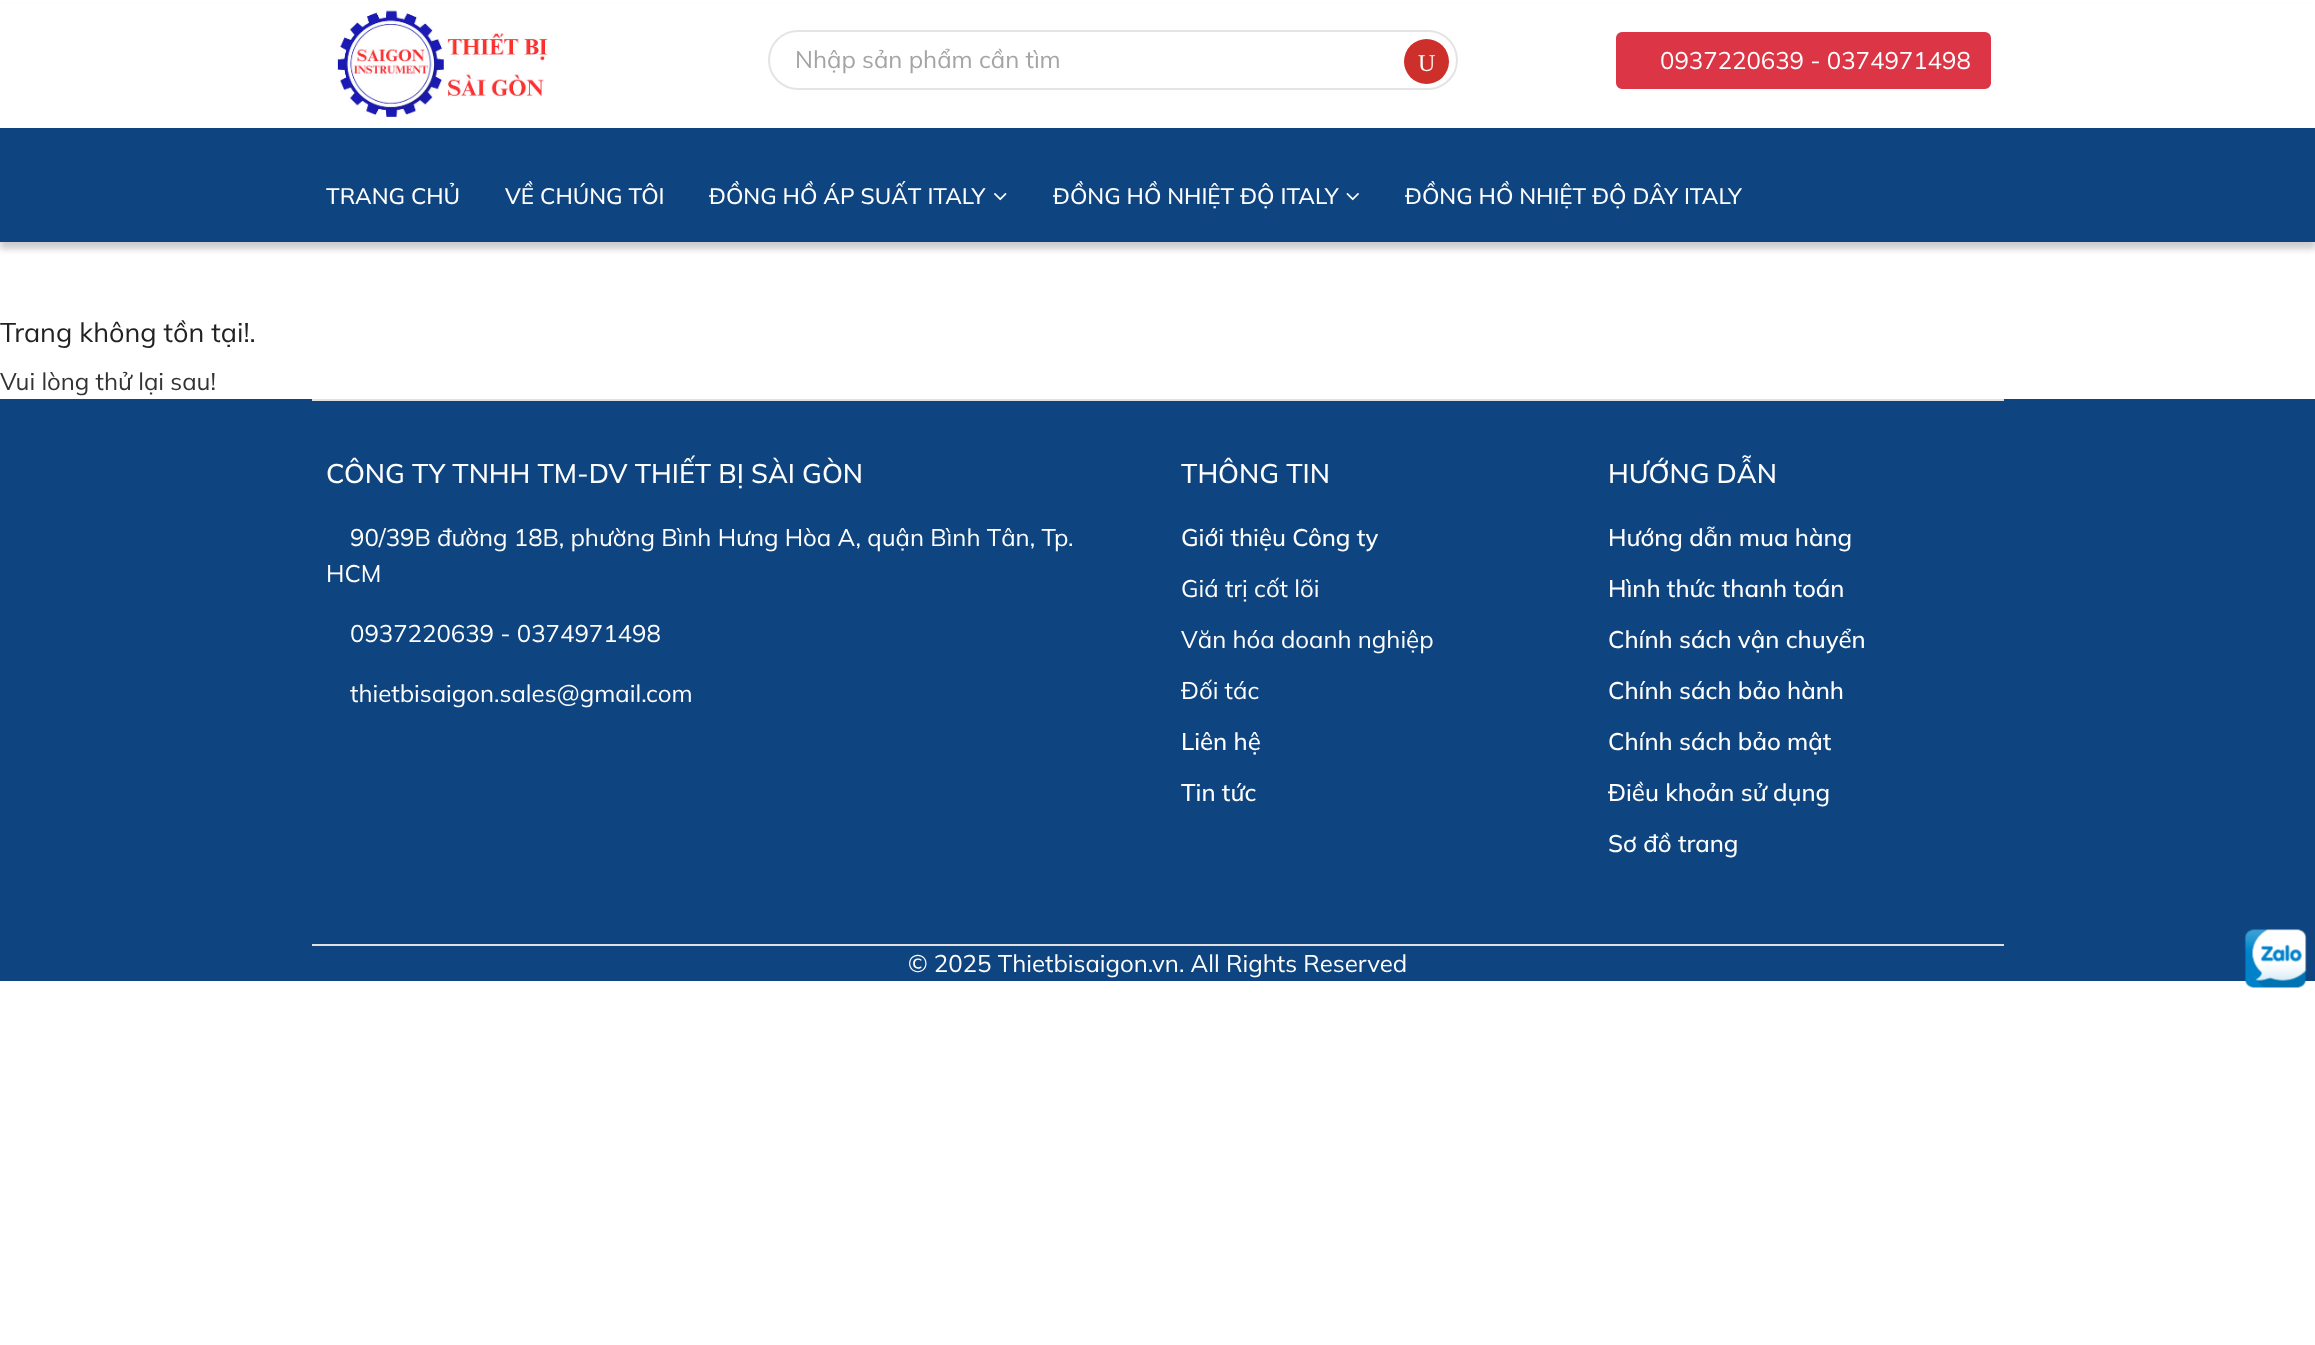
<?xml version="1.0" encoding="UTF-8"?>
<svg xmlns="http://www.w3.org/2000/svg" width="2315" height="1345">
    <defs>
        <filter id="blur1" x="-50%" y="-200%" width="200%" height="500%"><feGaussianBlur stdDeviation="3"/></filter>
    </defs>
    <rect width="100%" height="100%" fill="#FFFFFF"/>
    <rect x="0" y="8" width="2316" height="241" fill="#000000" fill-opacity="0.1" filter="url(#blur1)"/>
    <rect x="0" y="4" width="2315" height="124" fill="#FFFFFF"/>
    <image x="336" y="10" width="213" height="108" href="img_01.png"/>
    <rect x="769" y="31" width="688" height="58" rx="29" fill="none" stroke="#E4E4E4" stroke-width="2"/>
    <text x="795" y="68" font-family="Mulish" font-size="24" fill="#A4A4A4">Nhập sản phẩm cần tìm</text>
    <circle cx="1426.5" cy="61.5" r="22.5" fill="#CD2F2A"/>
    <text x="1418" y="71" font-family="Liberation Serif" font-size="24" fill="#FFFFFF">U</text>
    <rect x="1617" y="33" width="373" height="55" rx="5" fill="#DC3545" stroke="#DC3545" stroke-width="2"/>
    <text x="1660" y="69" font-family="Mulish" font-size="24" fill="#FFFFFF">0937220639 - 0374971498</text>
    <rect x="0" y="135" width="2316" height="114" fill="#000000" fill-opacity="0.1" filter="url(#blur1)"/>
    <rect x="0" y="128" width="2315" height="114" fill="#0E447F"/>
    <text x="326" y="204" font-family="Mulish" font-size="22.5" font-weight="500" fill="#FFFFFF">TRANG CHỦ</text>
    <text x="505" y="204" font-family="Mulish" font-size="22.5" font-weight="500" fill="#FFFFFF">VỀ CHÚNG TÔI</text>
    <text x="709" y="204" font-family="Mulish" font-size="22.5" font-weight="500" fill="#FFFFFF">ĐỒNG HỒ ÁP SUẤT ITALY</text>
    <image x="994" y="193" width="13" height="8" href="img_02.png"/>
    <text x="1053" y="204" font-family="Mulish" font-size="22.5" font-weight="500" fill="#FFFFFF">ĐỒNG HỒ NHIỆT ĐỘ ITALY</text>
    <image x="1346" y="193" width="13" height="8" href="img_03.png"/>
    <text x="1405" y="204" font-family="Mulish" font-size="22.5" font-weight="500" fill="#FFFFFF">ĐỒNG HỒ NHIỆT ĐỘ DÂY ITALY</text>
    <text x="0" y="342" font-family="Mulish" font-size="27" fill="#222222">Trang không tồn tại!.</text>
    <text x="0" y="390" font-family="Mulish" font-size="24" fill="#333333">Vui lòng thử lại sau!</text>
    <rect x="0" y="399" width="2315" height="582" fill="#0E447F"/>
    <rect x="312" y="399" width="1692" height="2" fill="#E0E0E0"/>
    <text x="326" y="483" font-family="Mulish" font-size="27" font-weight="500" fill="#FFFFFF">CÔNG TY TNHH TM-DV THIẾT BỊ SÀI GÒN</text>
    <text x="350" y="546" font-family="Mulish" font-size="24" fill="#FFFFFF">90/39B đường 18B, phường Bình Hưng Hòa A, quận Bình Tân, Tp.</text>
    <text x="326" y="582" font-family="Mulish" font-size="24" fill="#FFFFFF">HCM</text>
    <text x="350" y="642" font-family="Mulish" font-size="24" fill="#FFFFFF">0937220639 - 0374971498</text>
    <text x="350" y="702" font-family="Mulish" font-size="24" fill="#FFFFFF">thietbisaigon.sales@gmail.com</text>
    <text x="1181" y="483" font-family="Mulish" font-size="27" font-weight="500" fill="#FFFFFF">THÔNG TIN</text>
    <text x="1181" y="546" font-family="Mulish" font-size="24" font-weight="500" fill="#FFFFFF">Giới thiệu Công ty</text>
    <text x="1181" y="597" font-family="Mulish" font-size="24" fill="#FFFFFF">Giá trị cốt lõi</text>
    <text x="1181" y="648" font-family="Mulish" font-size="24" fill="#FFFFFF">Văn hóa doanh nghiệp</text>
    <text x="1181" y="699" font-family="Mulish" font-size="24" fill="#FFFFFF">Đối tác</text>
    <text x="1181" y="750" font-family="Mulish" font-size="24" font-weight="500" fill="#FFFFFF">Liên hệ</text>
    <text x="1181" y="801" font-family="Mulish" font-size="24" font-weight="500" fill="#FFFFFF">Tin tức</text>
    <text x="1608" y="483" font-family="Mulish" font-size="27" font-weight="500" fill="#FFFFFF">HƯỚNG DẪN</text>
    <text x="1608" y="546" font-family="Mulish" font-size="24" font-weight="500" fill="#FFFFFF">Hướng dẫn mua hàng</text>
    <text x="1608" y="597" font-family="Mulish" font-size="24" font-weight="500" fill="#FFFFFF">Hình thức thanh toán</text>
    <text x="1608" y="648" font-family="Mulish" font-size="24" font-weight="500" fill="#FFFFFF">Chính sách vận chuyển</text>
    <text x="1608" y="699" font-family="Mulish" font-size="24" font-weight="500" fill="#FFFFFF">Chính sách bảo hành</text>
    <text x="1608" y="750" font-family="Mulish" font-size="24" font-weight="500" fill="#FFFFFF">Chính sách bảo mật</text>
    <text x="1608" y="801" font-family="Mulish" font-size="24" font-weight="500" fill="#FFFFFF">Điều khoản sử dụng</text>
    <text x="1608" y="852" font-family="Mulish" font-size="24" font-weight="500" fill="#FFFFFF">Sơ đồ trang</text>
    <rect x="312" y="944" width="1692" height="2" fill="#E0E0E0"/>
    <text x="908" y="972" font-family="Mulish" font-size="24" fill="#FFFFFF">© 2025 Thietbisaigon.vn. All Rights Reserved</text>
    <image x="2244" y="929" width="63" height="59" href="img_04.png"/>
</svg>
